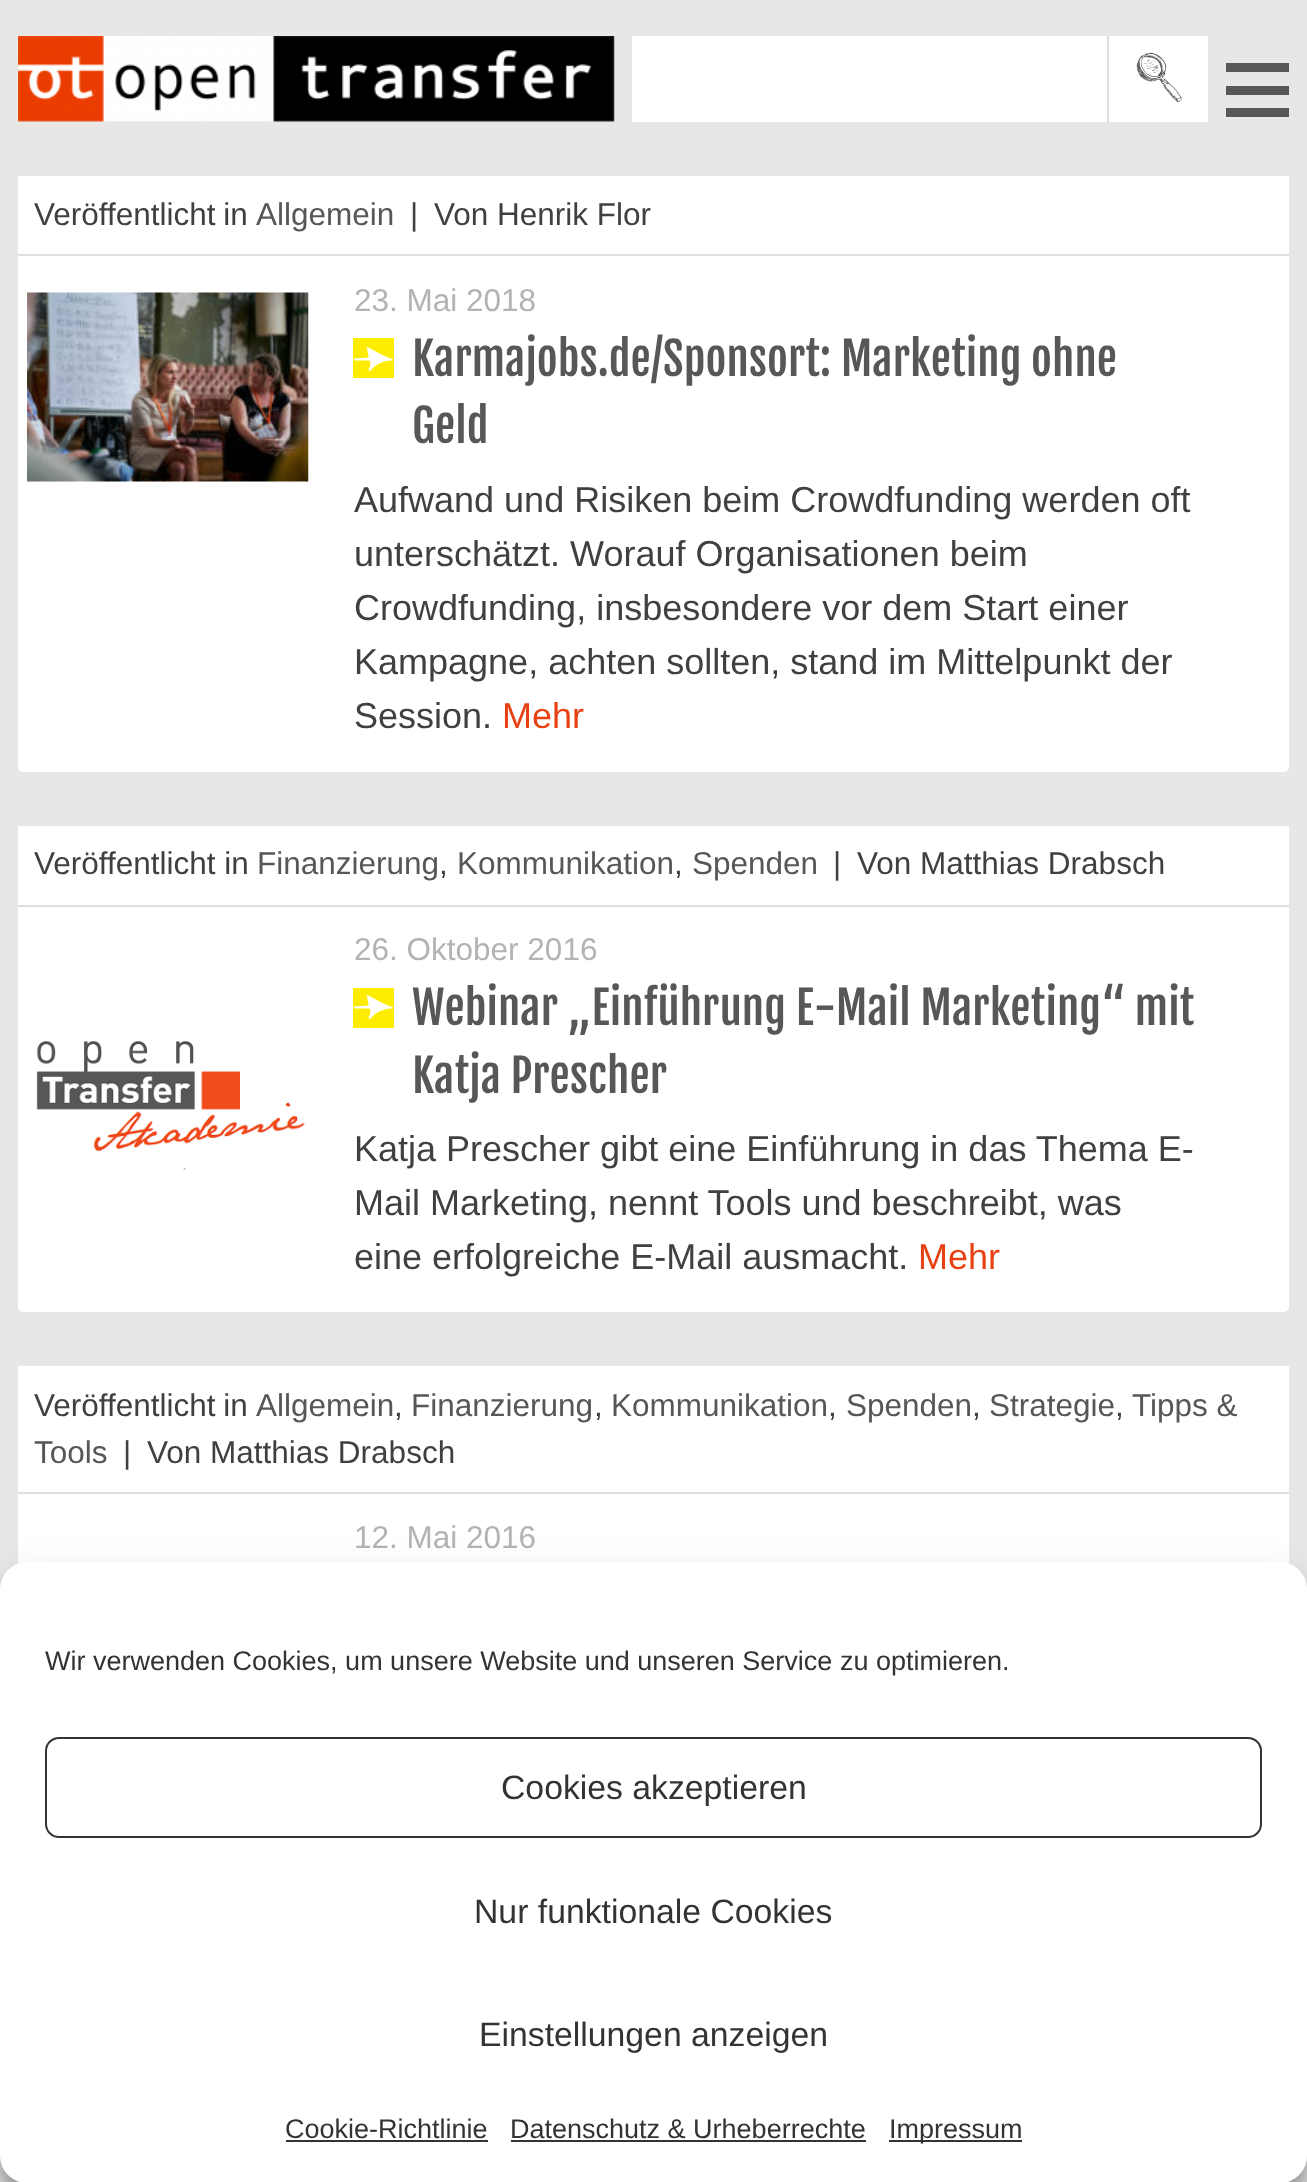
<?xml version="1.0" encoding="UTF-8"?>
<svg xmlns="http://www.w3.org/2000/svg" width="1307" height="2182">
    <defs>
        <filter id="blur1" x="-50%" y="-200%" width="200%" height="500%"><feGaussianBlur stdDeviation="7"/></filter>
        <filter id="blur2" x="-50%" y="-200%" width="200%" height="500%"><feGaussianBlur stdDeviation="22.5"/></filter>
    </defs>
    <rect width="100%" height="100%" fill="#E9E7E5"/>
    <image x="18" y="36" width="597" height="86" href="img_01.png"/>
    <rect x="632" y="36" width="576" height="86" fill="#FFFFFF"/>
    <rect x="1107" y="36" width="2" height="86" fill="#DFDFDF"/>
    <image x="1136" y="52" width="46" height="50" href="img_02.png"/>
    <rect x="1226" y="63" width="63" height="9" fill="#575756"/>
    <rect x="1226" y="86" width="63" height="9" fill="#575756"/>
    <rect x="1226" y="108" width="63" height="9" fill="#575756"/>
    <rect x="18" y="176" width="1271" height="596" rx="5" fill="#FFFFFF"/>
    <rect x="18" y="176" width="1271" height="4" fill="#FFFFFF"/>
    <rect x="18" y="254" width="1271" height="2" fill="#DFDFDF"/>
    <text x="34" y="225" word-spacing="-1" font-family="Liberation Sans" font-size="31.5" fill="#404040">Veröffentlicht in</text>
    <text x="256" y="225" font-family="Liberation Sans" font-size="31.5" fill="#575756">Allgemein</text>
    <text x="410" y="225" font-family="Liberation Sans" font-size="31.5" fill="#404040">|</text>
    <text x="434" y="225" font-family="Liberation Sans" font-size="31.5" fill="#404040">Von Henrik Flor</text>
    <image x="27" y="292" width="282" height="190" href="img_03.png"/>
    <text x="354" y="311" font-family="Liberation Sans" font-size="31.5" fill="#B3B3B3">23. Mai 2018</text>
    <rect x="353" y="338" width="41" height="40" fill="#FEED00"/>
    <image x="353" y="347" width="41" height="24" href="img_04.png"/>
    <text font-family="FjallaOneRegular" font-size="45" fill="#575756">
        <tspan x="412" y="376">Karmajobs.de/Sponsort: Marketing ohne</tspan>
        <tspan x="412" y="443">Geld</tspan>
    </text>
    <text font-family="Liberation Sans" font-size="36" fill="#404040">
        <tspan x="354" y="512">Aufwand und Risiken beim Crowdfunding werden oft</tspan>
        <tspan x="354" y="566">unterschätzt. Worauf Organisationen beim</tspan>
        <tspan x="354" y="620">Crowdfunding, insbesondere vor dem Start einer</tspan>
        <tspan x="354" y="674">Kampagne, achten sollten, stand im Mittelpunkt der</tspan>
        <tspan x="354" y="728">Session.</tspan>
    </text>
    <text x="502" y="728" font-family="Liberation Sans" font-size="36" fill="#E74011">Mehr</text>
    <rect x="18" y="826" width="1271" height="486" rx="5" fill="#FFFFFF"/>
    <rect x="18" y="826" width="1271" height="4" fill="#FFFFFF"/>
    <rect x="18" y="905" width="1271" height="2" fill="#DFDFDF"/>
    <text x="34" y="874" font-family="Liberation Sans" font-size="31.5" fill="#404040">Veröffentlicht in</text>
    <text x="257" y="874" font-family="Liberation Sans" font-size="31.5" fill="#575756">Finanzierung</text>
    <text x="439" y="874" font-family="Liberation Sans" font-size="31.5" fill="#404040">,</text>
    <text x="457" y="874" font-family="Liberation Sans" font-size="31.5" fill="#575756">Kommunikation</text>
    <text x="674" y="874" font-family="Liberation Sans" font-size="31.5" fill="#404040">,</text>
    <text x="692" y="874" font-family="Liberation Sans" font-size="31.5" fill="#575756">Spenden</text>
    <text x="833" y="874" font-family="Liberation Sans" font-size="31.5" fill="#404040">|</text>
    <text x="857" y="874" font-family="Liberation Sans" font-size="31.5" fill="#404040">Von Matthias Drabsch</text>
    <image x="36" y="1041" width="269" height="129" href="img_05.png"/>
    <text x="354" y="960" font-family="Liberation Sans" font-size="31.5" fill="#B3B3B3">26. Oktober 2016</text>
    <rect x="353" y="988" width="41" height="40" fill="#FEED00"/>
    <image x="353" y="995" width="41" height="24" href="img_06.png"/>
    <text font-family="FjallaOneRegular" font-size="45" fill="#575756">
        <tspan x="412" y="1025">Webinar „Einführung E-Mail Marketing“ mit</tspan>
        <tspan x="412" y="1093">Katja Prescher</tspan>
    </text>
    <text font-family="Liberation Sans" font-size="36" fill="#404040">
        <tspan x="354" y="1161">Katja Prescher gibt eine Einführung in das Thema E-</tspan>
        <tspan x="354" y="1215">Mail Marketing, nennt Tools und beschreibt, was</tspan>
        <tspan x="354" y="1269">eine erfolgreiche E-Mail ausmacht.</tspan>
    </text>
    <text x="918" y="1269" font-family="Liberation Sans" font-size="36" fill="#E74011">Mehr</text>
    <rect x="18" y="1494" width="1271" height="70" fill="#FFFFFF"/>
    <rect x="18" y="1366" width="1271" height="126" fill="#FFFFFF"/>
    <rect x="18" y="1492" width="1271" height="2" fill="#DFDFDF"/>
    <text x="34" y="1416" word-spacing="-1" font-family="Liberation Sans" font-size="31.5" fill="#404040">Veröffentlicht in</text>
    <text x="256" y="1416" font-family="Liberation Sans" font-size="31.5" fill="#575756">Allgemein</text>
    <text x="394" y="1416" font-family="Liberation Sans" font-size="31.5" fill="#404040">,</text>
    <text x="411" y="1416" font-family="Liberation Sans" font-size="31.5" fill="#575756">Finanzierung</text>
    <text x="594" y="1416" font-family="Liberation Sans" font-size="31.5" fill="#404040">,</text>
    <text x="611" y="1416" font-family="Liberation Sans" font-size="31.5" fill="#575756">Kommunikation</text>
    <text x="828" y="1416" font-family="Liberation Sans" font-size="31.5" fill="#404040">,</text>
    <text x="846" y="1416" font-family="Liberation Sans" font-size="31.5" fill="#575756">Spenden</text>
    <text x="972" y="1416" font-family="Liberation Sans" font-size="31.5" fill="#404040">,</text>
    <text x="989" y="1416" font-family="Liberation Sans" font-size="31.5" fill="#575756">Strategie</text>
    <text x="1115" y="1416" font-family="Liberation Sans" font-size="31.5" fill="#404040">,</text>
    <text x="1132" y="1416" font-family="Liberation Sans" font-size="31.5" fill="#575756">Tipps &amp;</text>
    <text x="34" y="1463" font-family="Liberation Sans" font-size="31.5" fill="#575756">Tools</text>
    <text x="123" y="1463" font-family="Liberation Sans" font-size="31.5" fill="#404040">|</text>
    <text x="147" y="1463" font-family="Liberation Sans" font-size="31.5" fill="#404040">Von Matthias Drabsch</text>
    <text x="354" y="1548" font-family="Liberation Sans" font-size="31.5" fill="#B3B3B3">12. Mai 2016</text>
    <rect x="18" y="2181" width="1271" height="1" fill="#FFFFFF"/>
    <rect x="0" y="1575" width="1307" height="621" rx="27" fill="#000000" fill-opacity="0.23" filter="url(#blur1)"/>
    <rect x="0" y="1584" width="1307" height="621" rx="27" fill="#000000" fill-opacity="0.19" filter="url(#blur2)"/>
    <rect x="0" y="1562" width="1307" height="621" rx="27" fill="#FFFFFF"/>
    <text x="45" y="1670" font-family="Liberation Sans" font-size="27" fill="#333333">Wir verwenden Cookies, um unsere Website und unseren Service zu optimieren.</text>
    <rect x="46" y="1738" width="1215" height="99" rx="13" fill="none" stroke="#333333" stroke-width="2"/>
    <text x="501" y="1799" font-family="Liberation Sans" font-size="33.75" fill="#333333">Cookies akzeptieren</text>
    <text x="474" y="1923" font-family="Liberation Sans" font-size="33.75" fill="#333333">Nur funktionale Cookies</text>
    <text x="479" y="2046" font-family="Liberation Sans" font-size="33.75" fill="#333333">Einstellungen anzeigen</text>
    <text x="285" y="2138" font-family="Liberation Sans" font-size="27" fill="#333333">Cookie-Richtlinie</text>
    <rect x="286" y="2140" width="202" height="2" fill="#333333"/>
    <text x="510" y="2138" font-family="Liberation Sans" font-size="27" fill="#333333">Datenschutz &amp; Urheberrechte</text>
    <rect x="511" y="2140" width="355" height="2" fill="#333333"/>
    <rect x="889" y="2140" width="133" height="2" fill="#333333"/>
    <text x="889" y="2138" font-family="Liberation Sans" font-size="27" fill="#333333">Impressum</text>
</svg>
